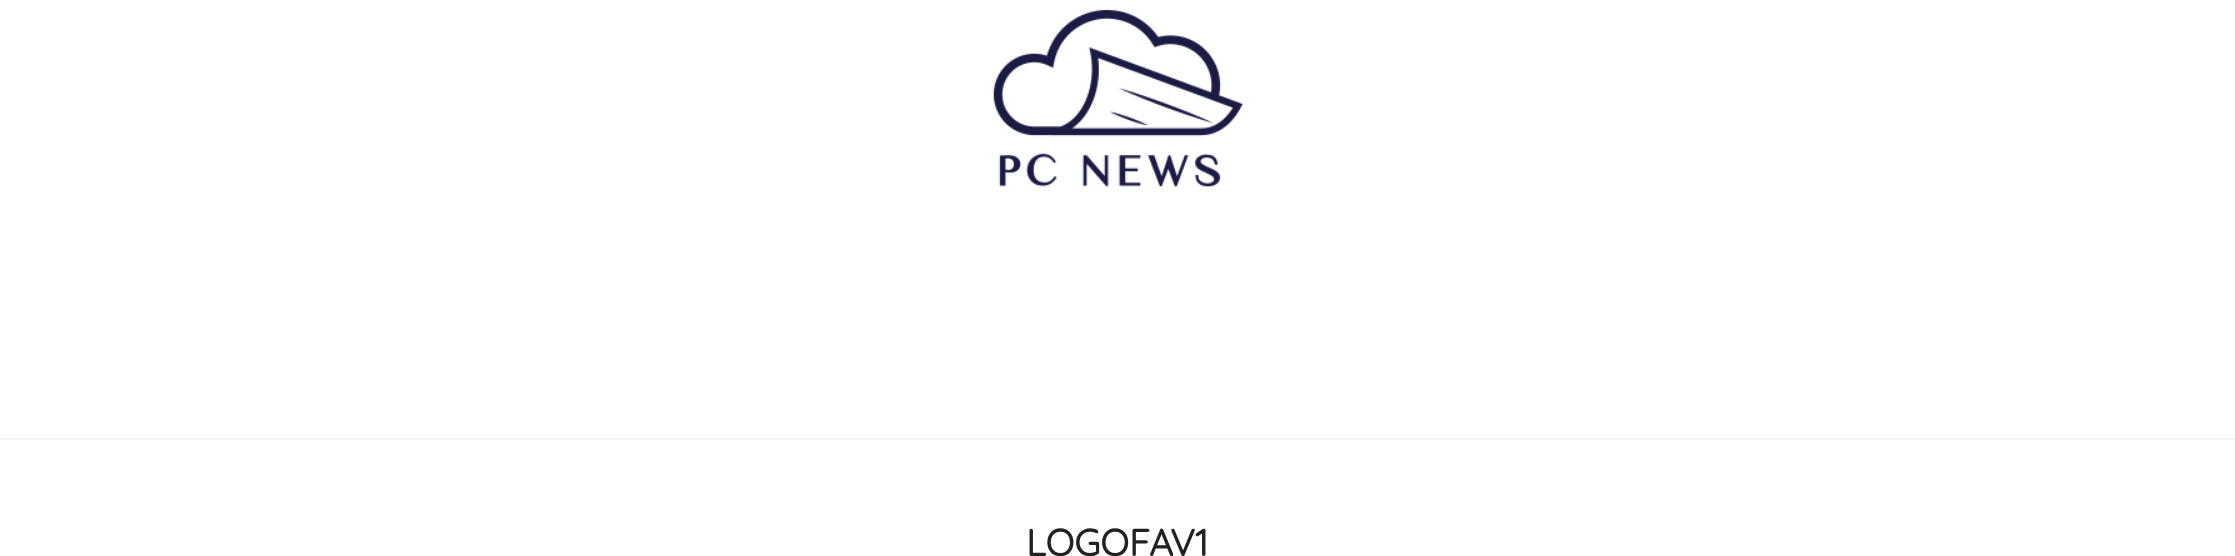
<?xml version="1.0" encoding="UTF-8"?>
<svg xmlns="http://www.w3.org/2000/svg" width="2235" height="556">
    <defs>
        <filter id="blur1" x="-50%" y="-200%" width="200%" height="500%"><feGaussianBlur stdDeviation="1"/></filter>
    </defs>
    <rect width="100%" height="100%" fill="#FFFFFF"/>
    <rect x="-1" y="-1" width="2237" height="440" fill="#000000" fill-opacity="0.1" filter="url(#blur1)"/>
    <rect x="0" y="0" width="2235" height="438" fill="#FFFFFF"/>
    <image x="993" y="9" width="250" height="178" href="img_01.png"/>
    <text x="1026" y="556" font-family="Quicksand" font-size="37.5" font-weight="700" fill="#222222">LOGOFAV1</text>
</svg>
